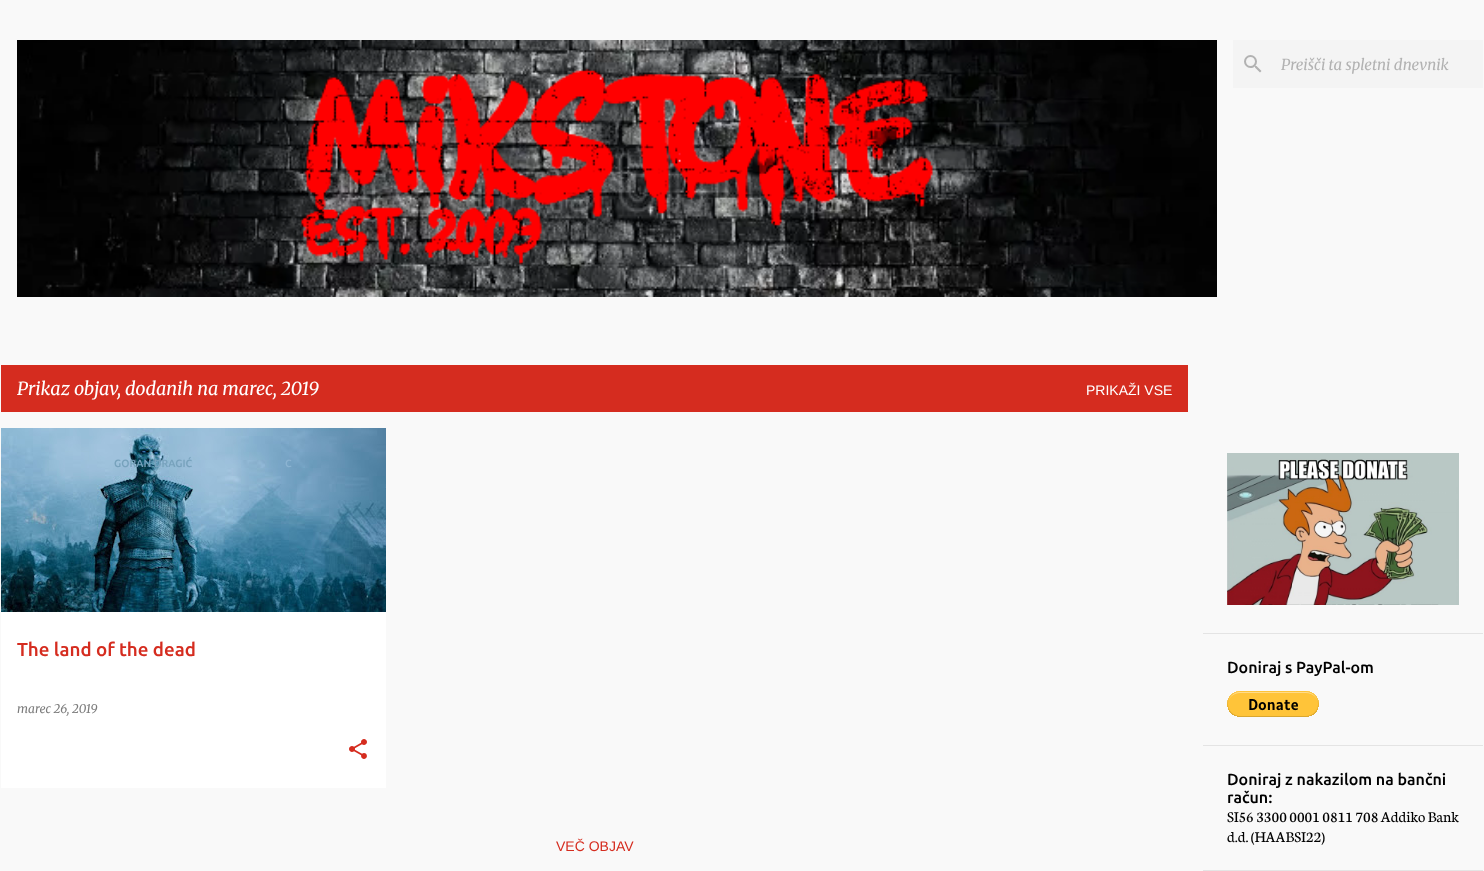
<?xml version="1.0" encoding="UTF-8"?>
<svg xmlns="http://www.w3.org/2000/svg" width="1484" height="871">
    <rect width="100%" height="100%" fill="#F9F9F9"/>
    <image x="17" y="40" width="1200" height="257" href="img_01.png"/>
    <rect x="1233" y="40" width="250" height="48" fill="#F4F4F4"/>
    <image x="1244" y="55" width="18" height="18" href="img_02.png"/>
    <text x="1281" y="70" font-family="Merriweather" font-size="15" font-style="italic" fill="#B2B2B2">Preišči ta spletni dnevnik</text>
    <rect x="1" y="365" width="1187" height="47" fill="#D52C1F"/>
    <text x="17" y="395" font-family="Merriweather" font-size="18" font-style="italic" fill="#FFFFFF">Prikaz objav, dodanih na marec, 2019</text>
    <text x="1086" y="395" font-family="Liberation Sans" font-size="14" fill="#FFFFFF">PRIKAŽI VSE</text>
    <rect x="1" y="612" width="385" height="176" fill="#FFFFFF"/>
    <image x="1" y="428" width="385" height="184" href="img_03.png"/>
    <text x="114" y="467" font-family="Ubuntu" font-size="10.5" font-weight="500" fill="#77A2BC">GORAN DRAGIĆ</text>
    <text x="285" y="467" font-family="Ubuntu" font-size="10.5" font-weight="500" fill="#8BB3D1">C</text>
    <text x="17" y="713" font-family="Merriweather" font-size="12" font-style="italic" fill="#7C7C7C">marec 26, 2019</text>
    <text x="17" y="656" font-family="Ubuntu" font-size="18.75" font-weight="500" fill="#D52C1F">The land of the dead</text>
    <image x="349" y="739" width="18" height="20" href="img_04.png"/>
    <text x="556" y="851" font-family="Liberation Sans" font-size="14" fill="#D52C1F">VEČ OBJAV</text>
    <image x="1227" y="453" width="232" height="152" href="img_05.png"/>
    <rect x="1203" y="633" width="280" height="1" fill="#E4E4E4"/>
    <text x="1227" y="673" font-family="Ubuntu" font-size="16" font-weight="500" fill="#000000">Doniraj s PayPal-om</text>
    <image x="1227" y="691" width="92" height="26" href="img_06.png"/>
    <rect x="1203" y="745" width="280" height="1" fill="#E4E4E4"/>
    <text font-family="Ubuntu" font-size="16" font-weight="500" fill="#000000">
        <tspan x="1227" y="785">Doniraj z nakazilom na bančni</tspan>
        <tspan x="1227" y="803">račun:</tspan>
    </text>
    <text font-family="Neuton" font-size="16" fill="#000000">
        <tspan x="1227" y="822">SI56 3300 0001 0811 708 Addiko Bank</tspan>
        <tspan x="1227" y="842">d.d. (HAABSI22)</tspan>
    </text>
    <rect x="1203" y="870" width="280" height="1" fill="#E4E4E4"/>
</svg>
